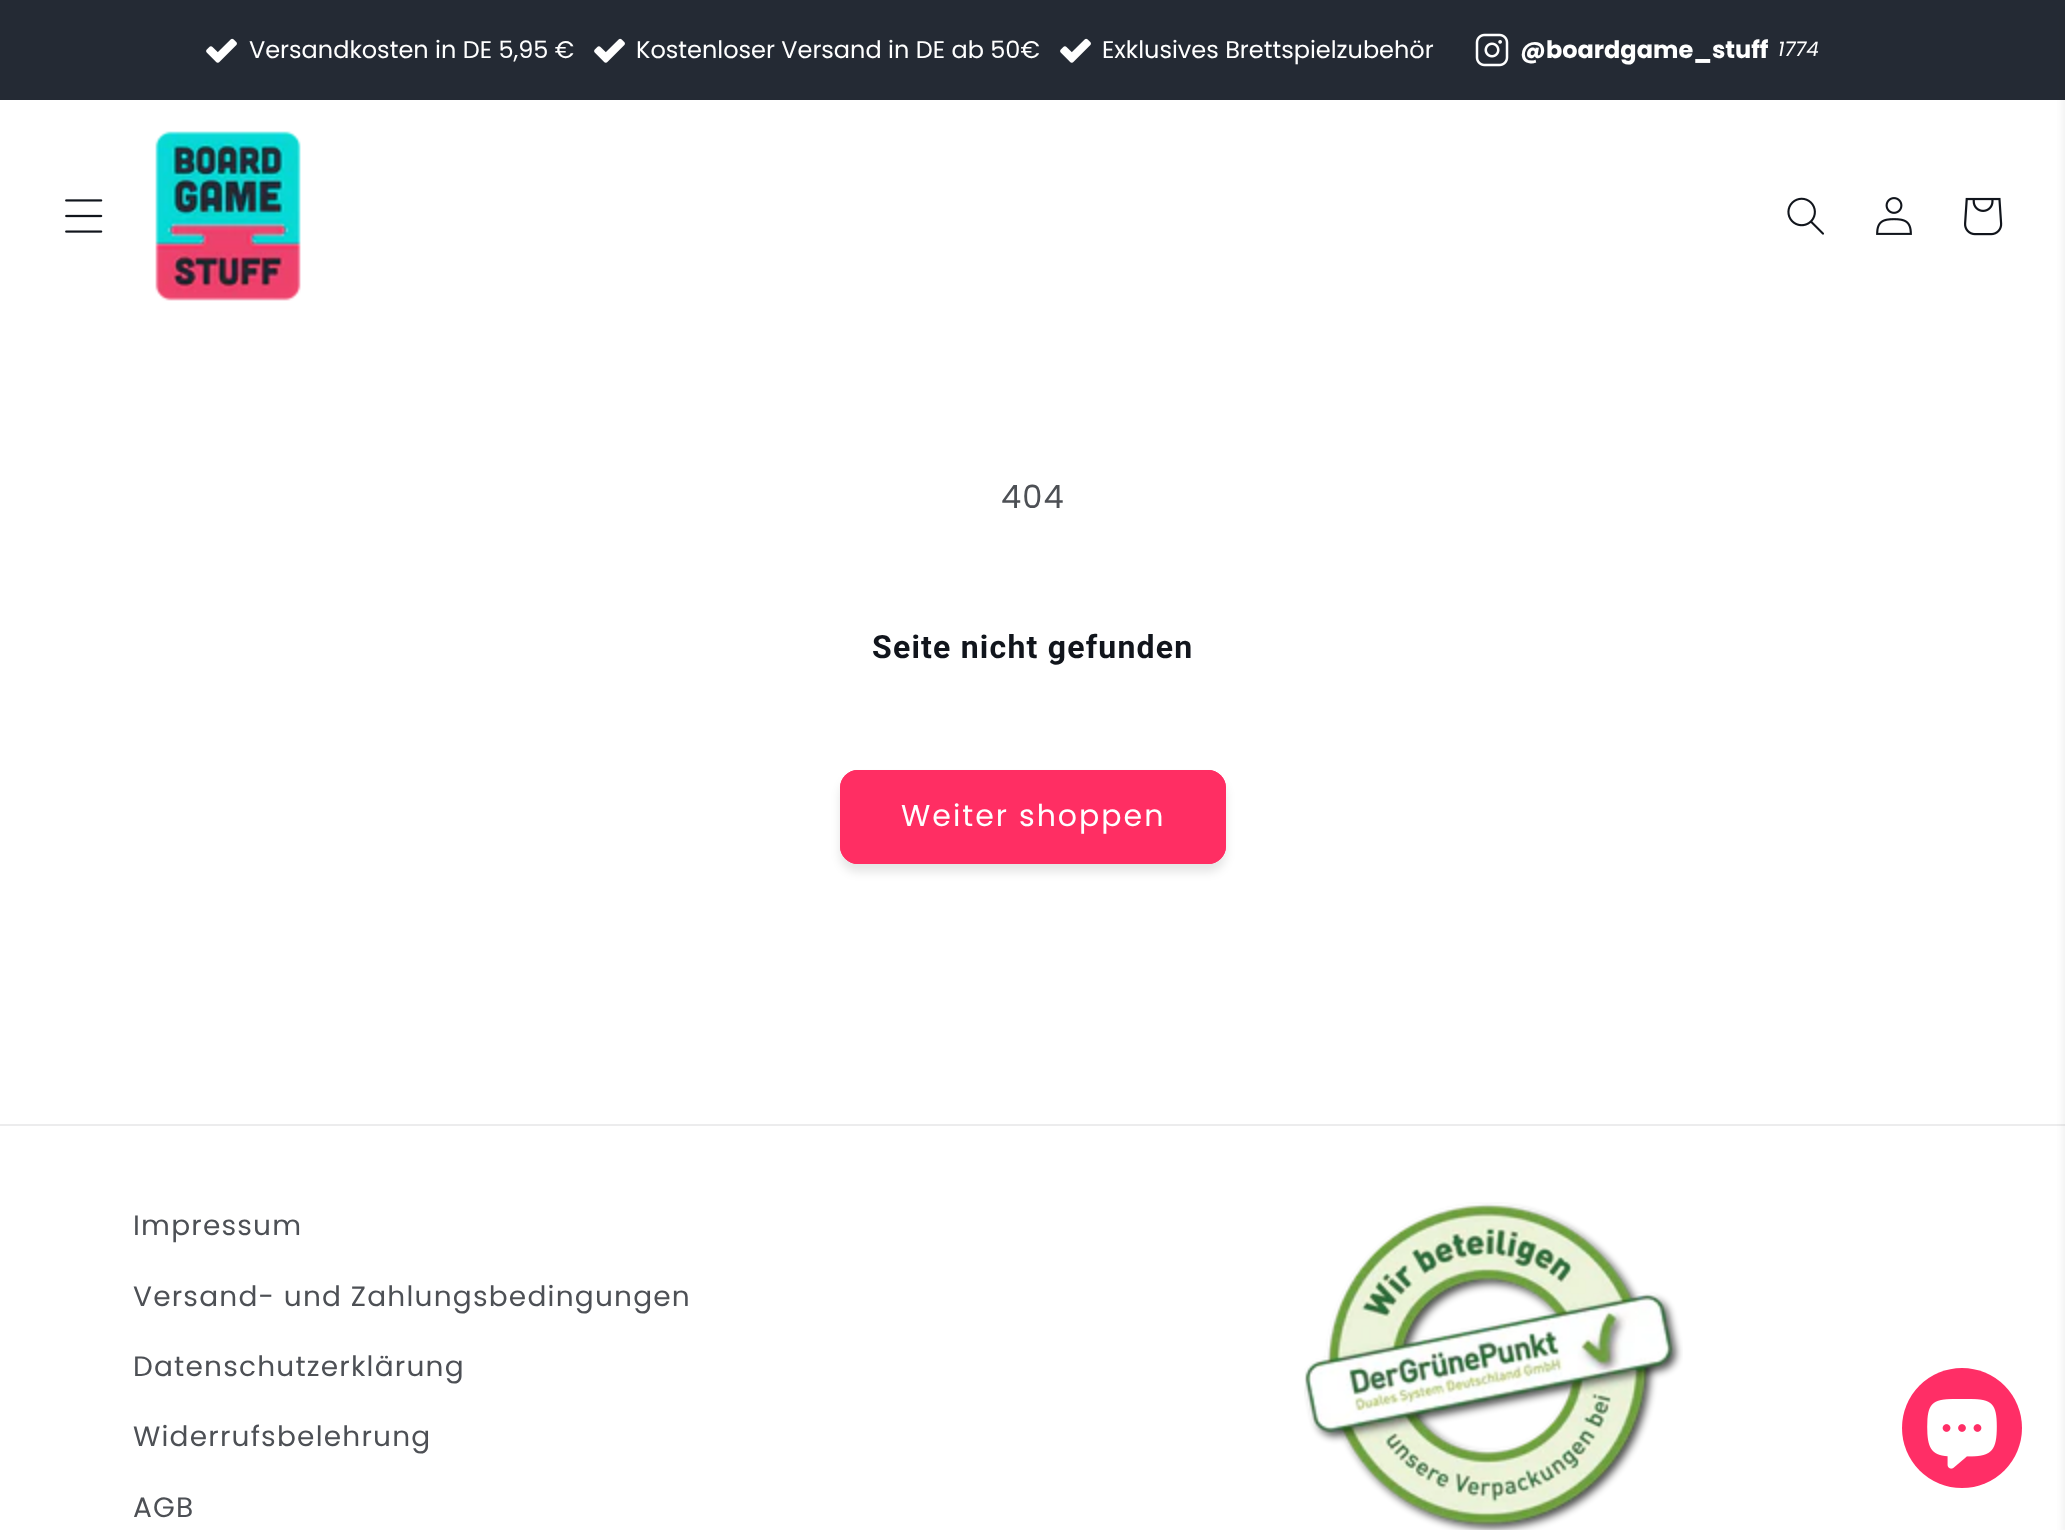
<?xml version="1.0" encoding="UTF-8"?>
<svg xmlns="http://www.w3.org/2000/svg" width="2065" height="1530">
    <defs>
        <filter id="blur1" x="-50%" y="-200%" width="200%" height="500%"><feGaussianBlur stdDeviation="6"/></filter>
        <filter id="blur2" x="-50%" y="-200%" width="200%" height="500%"><feGaussianBlur stdDeviation="5"/></filter>
    </defs>
    <rect width="100%" height="100%" fill="#FFFFFF"/>
    <rect x="0" y="0" width="2065" height="100" fill="#242A34"/>
    <image x="206" y="38" width="31" height="25" href="img_01.png"/>
    <text x="249" y="58" font-family="Poppins" font-size="24" fill="#FFFFFF">Versandkosten in DE 5,95 €</text>
    <image x="594" y="38" width="31" height="25" href="img_01.png"/>
    <text x="636" y="58" font-family="Poppins" font-size="24" fill="#FFFFFF">Kostenloser Versand in DE ab 50€</text>
    <image x="1060" y="38" width="31" height="25" href="img_01.png"/>
    <text x="1102" y="58" font-family="Poppins" font-size="24" fill="#FFFFFF">Exklusives Brettspielzubehör</text>
    <image x="1475" y="33" width="34" height="34" href="img_02.png"/>
    <text x="1520" y="58" font-family="Poppins" font-size="24" font-weight="700" fill="#FFFFFF">@boardgame_stuff</text>
    <text x="1778" y="56" font-family="Poppins" font-size="20" font-style="italic" fill="#FFFFFF">1774</text>
    <rect x="0" y="1124" width="2065" height="2" fill="#ECECED"/>
    <rect x="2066" y="8" width="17" height="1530" fill="#000000" fill-opacity="0.1" filter="url(#blur1)"/>
    <image x="65" y="199" width="38" height="34" href="img_03.png"/>
    <image x="155" y="131" width="146" height="170" href="img_04.png"/>
    <image x="1787" y="197" width="37" height="38" href="img_05.png"/>
    <image x="1876" y="197" width="36" height="38" href="img_06.png"/>
    <image x="1964" y="197" width="39" height="39" href="img_07.png"/>
    <text x="1001" y="508" font-family="Poppins" font-size="32" letter-spacing="1.2" fill="#4D5055">404</text>
    <text x="872" y="658" font-family="Roboto" font-size="32" font-weight="700" letter-spacing="1.2" fill="#11151C">Seite nicht gefunden</text>
    <rect x="840" y="778" width="386" height="94" rx="18" fill="#11151C" fill-opacity="0.1" filter="url(#blur2)"/>
    <rect x="840" y="770" width="386" height="94" rx="18" fill="#FF2E63"/>
    <rect x="841" y="771" width="384" height="92" rx="17" fill="none" stroke="#FF2E63" stroke-width="2"/>
    <text x="901" y="826" font-family="Poppins" font-size="30" letter-spacing="2" fill="#FFFFFF">Weiter shoppen</text>
    <text x="133" y="1235" font-family="Poppins" font-size="28" letter-spacing="1.2" fill="#4D5055">Impressum</text>
    <text x="133" y="1306" font-family="Poppins" font-size="28" letter-spacing="1.2" fill="#4D5055">Versand- und Zahlungsbedingungen</text>
    <text x="133" y="1376" font-family="Poppins" font-size="28" letter-spacing="1.2" fill="#4D5055">Datenschutzerklärung</text>
    <text x="133" y="1446" font-family="Poppins" font-size="28" letter-spacing="1.2" fill="#4D5055">Widerrufsbelehrung</text>
    <text x="133" y="1517" font-family="Poppins" font-size="28" letter-spacing="1.2" fill="#4D5055">AGB</text>
    <image x="1304" y="1202" width="379" height="328" href="img_08.png"/>
    <circle cx="1962" cy="1428" r="60" fill="#FF2E66"/>
    <image x="1927" y="1399" width="70" height="70" href="img_09.png"/>
</svg>
